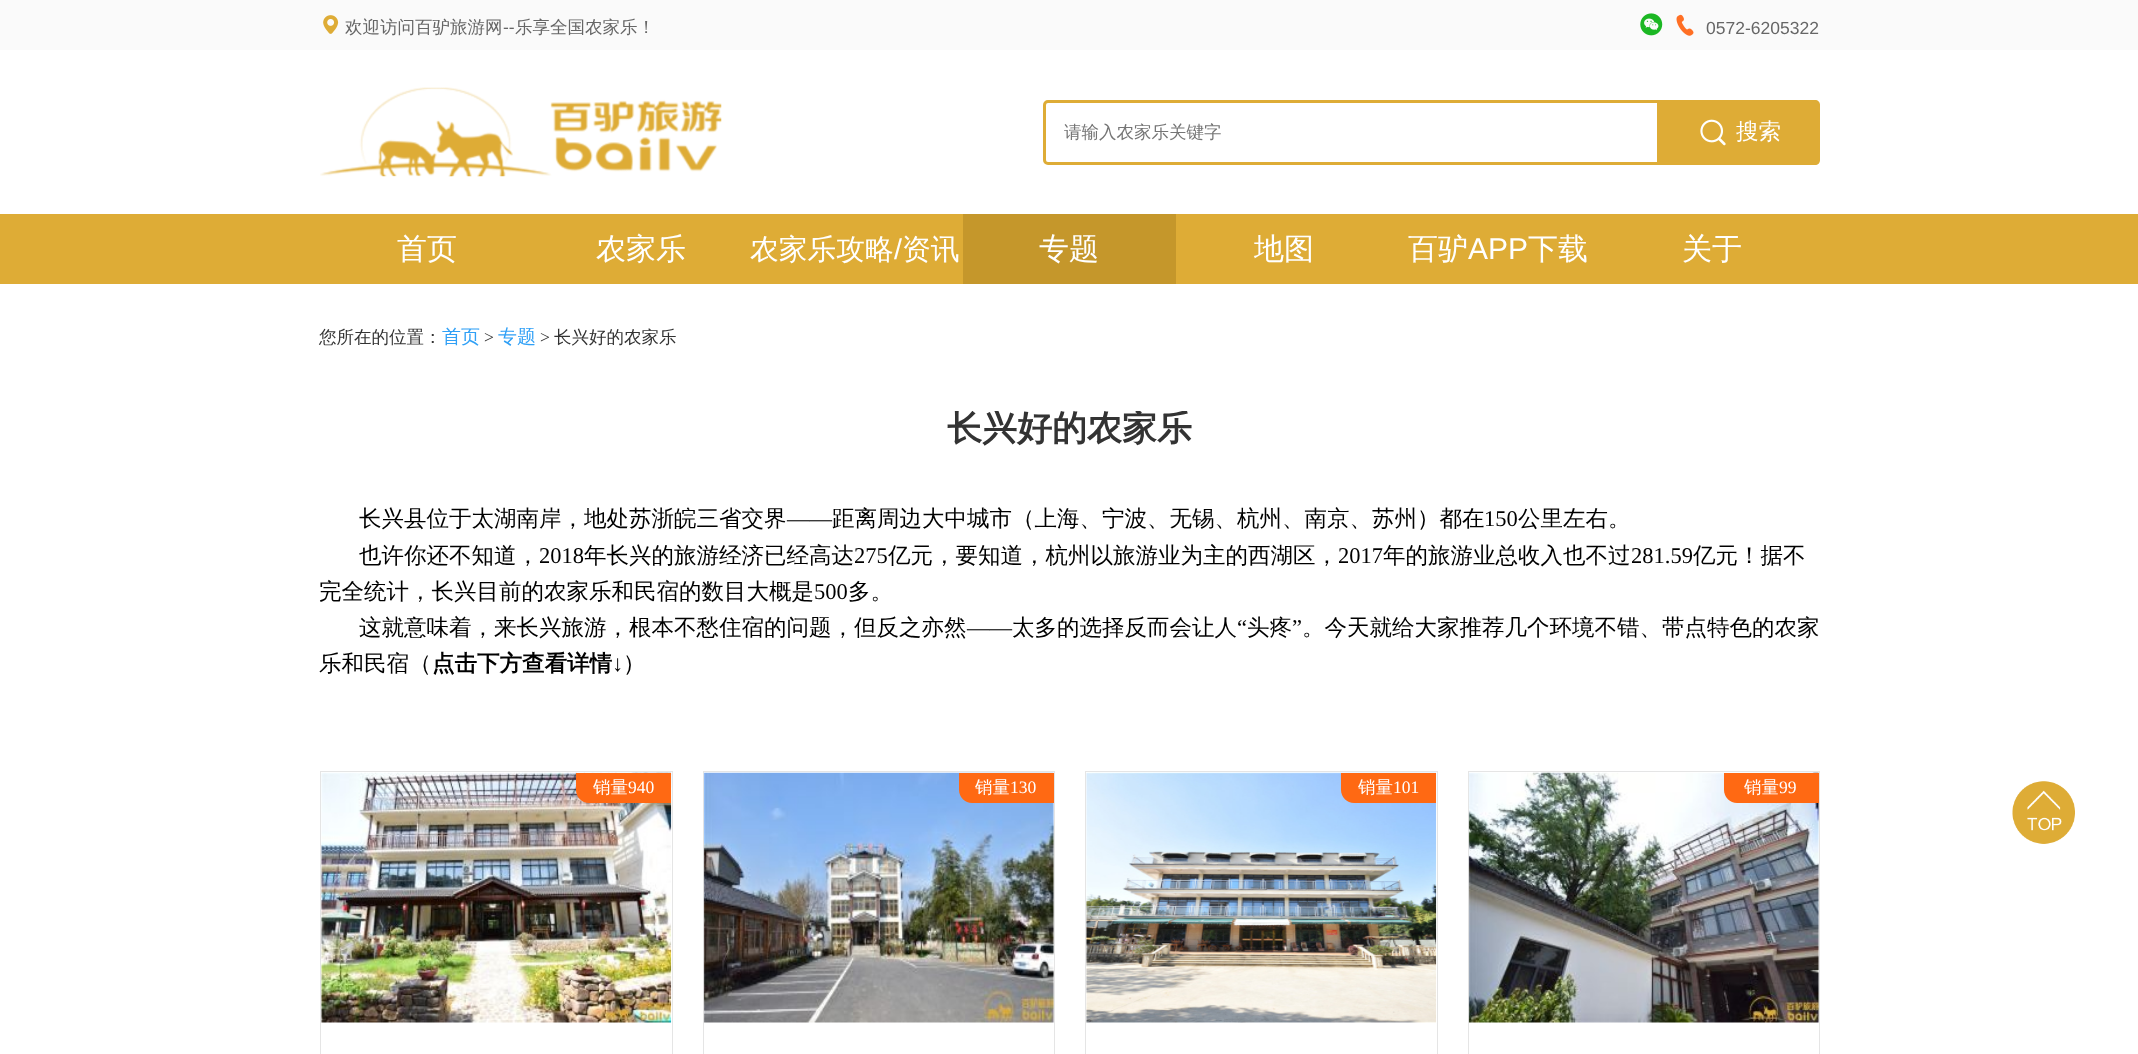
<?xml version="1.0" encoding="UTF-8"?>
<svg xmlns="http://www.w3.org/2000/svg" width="2138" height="1054">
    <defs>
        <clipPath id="clip1"><rect x="320" y="411" width="1500" height="307"/></clipPath>
    </defs>
    <rect width="100%" height="100%" fill="#FFFFFF"/>
    <rect x="0" y="0" width="2138" height="50" fill="#FAFAFA"/>
    <image x="323" y="15" width="16" height="19" href="img_01.png"/>
    <text x="345" y="33" font-family="WenQuanYi Zen Hei" font-size="17.5" font-weight="500" fill="#666666">欢迎访问百驴旅游网</text>
    <text x="503" y="33" font-family="Liberation Sans" font-size="17.5" fill="#666666">--</text>
    <text x="515" y="33" font-family="WenQuanYi Zen Hei" font-size="17.5" font-weight="500" fill="#666666">乐享全国农家乐！</text>
    <image x="1640" y="13" width="23" height="23" href="img_02.png"/>
    <image x="1676" y="14" width="18" height="22" href="img_03.png"/>
    <text x="1706" y="34" font-family="Liberation Sans" font-size="17.5" fill="#666666">0572-6205322</text>
    <image x="320" y="87" width="402" height="90" href="img_04.png"/>
    <path d="M 1048 101.5 H 1658.5 V 163.5 H 1048 C 1046 163.5 1044.5 162 1044.5 160 V 105 C 1044.5 103 1046 101.5 1048 101.5 Z" fill="none" stroke="#DEAC36" stroke-width="3"/>
    <text x="1064" y="138" font-family="WenQuanYi Zen Hei" font-size="17.5" font-weight="500" fill="#757575">请输入农家乐关键字</text>
    <path d="M 1660 100 H 1815 C 1818 100 1820 102 1820 105 V 160 C 1820 163 1818 165 1815 165 H 1660 Z" fill="#DEAC36"/>
    <image x="1700" y="119" width="26" height="27" href="img_05.png"/>
    <text x="1736" y="139" font-family="WenQuanYi Zen Hei" font-size="22.5" font-weight="500" fill="#FFFFFF">搜索</text>
    <rect x="0" y="214" width="2138" height="70" fill="#DEAC36"/>
    <text x="397" y="259" font-family="WenQuanYi Zen Hei" font-size="30" font-weight="500" fill="#FFFFFF">首页</text>
    <text x="596" y="259" font-family="WenQuanYi Zen Hei" font-size="30" font-weight="500" fill="#FFFFFF">农家乐</text>
    <text x="750" y="259" font-family="WenQuanYi Zen Hei" font-size="28.75" font-weight="500" fill="#FFFFFF">农家乐攻略</text>
    <text x="894" y="259" font-family="Liberation Sans" font-size="28.75" fill="#FFFFFF">/</text>
    <text x="902" y="259" font-family="WenQuanYi Zen Hei" font-size="28.75" font-weight="500" fill="#FFFFFF">资讯</text>
    <rect x="963" y="214" width="213" height="70" fill="#C5972B"/>
    <text x="1039" y="259" font-family="WenQuanYi Zen Hei" font-size="30" font-weight="500" fill="#FFFFFF">专题</text>
    <text x="1254" y="259" font-family="WenQuanYi Zen Hei" font-size="30" font-weight="500" fill="#FFFFFF">地图</text>
    <text x="1408" y="259" font-family="WenQuanYi Zen Hei" font-size="30" font-weight="500" fill="#FFFFFF">百驴</text>
    <text x="1468" y="259" font-family="Liberation Sans" font-size="30" fill="#FFFFFF">APP</text>
    <text x="1528" y="259" font-family="WenQuanYi Zen Hei" font-size="30" font-weight="500" fill="#FFFFFF">下载</text>
    <text x="1682" y="259" font-family="WenQuanYi Zen Hei" font-size="30" font-weight="500" fill="#FFFFFF">关于</text>
    <text x="319" y="343" font-family="WenQuanYi Zen Hei" font-size="17.5" font-weight="500" fill="#333333">您所在的位置：</text>
    <text x="442" y="343" font-family="WenQuanYi Zen Hei" font-size="19" font-weight="500" fill="#30A0F6">首页</text>
    <text x="484" y="343" font-family="Liberation Serif" font-size="17.5" fill="#333333">&gt;</text>
    <text x="498" y="343" font-family="WenQuanYi Zen Hei" font-size="19" font-weight="500" fill="#30A0F6">专题</text>
    <text x="540" y="343" font-family="Liberation Serif" font-size="17.5" fill="#333333">&gt;</text>
    <text x="554" y="343" font-family="WenQuanYi Zen Hei" font-size="17.5" font-weight="500" fill="#333333">长兴好的农家乐</text>
    <g clip-path="url(#clip1)">
        <text x="947" y="440" font-family="WenQuanYi Zen Hei" font-size="35" font-weight="700" fill="#333333">长兴好的农家乐</text>
    </g>
    <text x="359" y="526" font-family="WenQuanYi Zen Hei" font-size="22.5" font-weight="500" fill="#000000">长兴县位于太湖南岸，地处苏浙皖三省交界</text>
    <text x="787" y="526" font-family="Liberation Serif" font-size="22.5" fill="#000000">——</text>
    <text x="832" y="526" font-family="WenQuanYi Zen Hei" font-size="22.5" font-weight="500" fill="#000000">距离周边大中城市（上海、宁波、无锡、杭州、南京、苏州）都在</text>
    <text x="1484" y="526" font-family="Liberation Serif" font-size="22.5" fill="#000000">150</text>
    <text x="1518" y="526" font-family="WenQuanYi Zen Hei" font-size="22.5" font-weight="500" fill="#000000">公里左右。</text>
    <text x="359" y="563" font-family="WenQuanYi Zen Hei" font-size="22.5" font-weight="500" fill="#000000">也许你还不知道，</text>
    <text x="539" y="563" font-family="Liberation Serif" font-size="22.5" fill="#000000">2018</text>
    <text x="584" y="563" font-family="WenQuanYi Zen Hei" font-size="22.5" font-weight="500" fill="#000000">年长兴的旅游经济已经高达</text>
    <text x="854" y="563" font-family="Liberation Serif" font-size="22.5" fill="#000000">275</text>
    <text x="888" y="563" font-family="WenQuanYi Zen Hei" font-size="22.5" font-weight="500" fill="#000000">亿元，要知道，杭州以旅游业为主的西湖区，</text>
    <text x="1338" y="563" font-family="Liberation Serif" font-size="22.5" fill="#000000">2017</text>
    <text x="1383" y="563" font-family="WenQuanYi Zen Hei" font-size="22.5" font-weight="500" fill="#000000">年的旅游业总收入也不过</text>
    <text x="1631" y="563" font-family="Liberation Serif" font-size="22.5" fill="#000000">281.59</text>
    <text x="1693" y="563" font-family="WenQuanYi Zen Hei" font-size="22.5" font-weight="500" fill="#000000">亿元！据不</text>
    <text x="319" y="599" font-family="WenQuanYi Zen Hei" font-size="22.5" font-weight="500" fill="#000000">完全统计，长兴目前的农家乐和民宿的数目大概是</text>
    <text x="814" y="599" font-family="Liberation Serif" font-size="22.5" fill="#000000">500</text>
    <text x="848" y="599" font-family="WenQuanYi Zen Hei" font-size="22.5" font-weight="500" fill="#000000">多。</text>
    <text x="359" y="635" font-family="WenQuanYi Zen Hei" font-size="22.5" font-weight="500" fill="#000000">这就意味着，来长兴旅游，根本不愁住宿的问题，但反之亦然</text>
    <text x="967" y="635" font-family="Liberation Serif" font-size="22.5" fill="#000000">——</text>
    <text x="1012" y="635" font-family="WenQuanYi Zen Hei" font-size="22.5" font-weight="500" fill="#000000">太多的选择反而会让人</text>
    <text x="1237" y="635" font-family="Liberation Serif" font-size="22.5" fill="#000000">“</text>
    <text x="1247" y="635" font-family="WenQuanYi Zen Hei" font-size="22.5" font-weight="500" fill="#000000">头疼</text>
    <text x="1292" y="635" font-family="Liberation Serif" font-size="22.5" fill="#000000">”</text>
    <text x="1302" y="635" font-family="WenQuanYi Zen Hei" font-size="22.5" font-weight="500" fill="#000000">。今天就给大家推荐几个环境不错、带点特色的农家</text>
    <text x="319" y="671" font-family="WenQuanYi Zen Hei" font-size="22.5" font-weight="500" fill="#000000">乐和民宿（</text>
    <text x="432" y="671" font-family="WenQuanYi Zen Hei" font-size="22.5" font-weight="700" fill="#000000">点击下方查看详情</text>
    <text x="612" y="671" font-family="Liberation Serif" font-size="22.5" font-weight="700" fill="#000000">↓</text>
    <text x="623" y="671" font-family="WenQuanYi Zen Hei" font-size="22.5" font-weight="500" fill="#000000">）</text>
    <rect x="320.5" y="771.5" width="352" height="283" fill="none" stroke="#E5E5E5"/>
    <image x="321" y="772" width="351" height="251" href="img_06.png"/>
    <path d="M 576 773 H 671 V 803 H 589 C 582 803 576 797 576 790 Z" fill="#FF6913"/>
    <text x="593" y="793" font-family="WenQuanYi Zen Hei" font-size="17.5" font-weight="500" fill="#FFFFFF">销量</text>
    <text x="628" y="793" font-family="Liberation Serif" font-size="17.5" fill="#FFFFFF">940</text>
    <rect x="703.5" y="771.5" width="351" height="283" fill="none" stroke="#E5E5E5"/>
    <image x="703" y="772" width="351" height="251" href="img_07.png"/>
    <path d="M 959 773 H 1054 V 803 H 972 C 965 803 959 797 959 790 Z" fill="#FF6913"/>
    <text x="975" y="793" font-family="WenQuanYi Zen Hei" font-size="17.5" font-weight="500" fill="#FFFFFF">销量</text>
    <text x="1010" y="793" font-family="Liberation Serif" font-size="17.5" fill="#FFFFFF">130</text>
    <rect x="1085.5" y="771.5" width="352" height="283" fill="none" stroke="#E5E5E5"/>
    <image x="1086" y="772" width="351" height="251" href="img_08.png"/>
    <path d="M 1341 773 H 1436 V 803 H 1354 C 1347 803 1341 797 1341 790 Z" fill="#FF6913"/>
    <text x="1358" y="793" font-family="WenQuanYi Zen Hei" font-size="17.5" font-weight="500" fill="#FFFFFF">销量</text>
    <text x="1393" y="793" font-family="Liberation Serif" font-size="17.5" fill="#FFFFFF">101</text>
    <rect x="1468.5" y="771.5" width="351" height="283" fill="none" stroke="#E5E5E5"/>
    <image x="1468" y="772" width="351" height="251" href="img_09.png"/>
    <path d="M 1724 773 H 1819 V 803 H 1737 C 1730 803 1724 797 1724 790 Z" fill="#FF6913"/>
    <text x="1744" y="793" font-family="WenQuanYi Zen Hei" font-size="17.5" font-weight="500" fill="#FFFFFF">销量</text>
    <text x="1779" y="793" font-family="Liberation Serif" font-size="17.5" fill="#FFFFFF">99</text>
    <image x="2012" y="781" width="63" height="63" href="img_10.png"/>
</svg>
